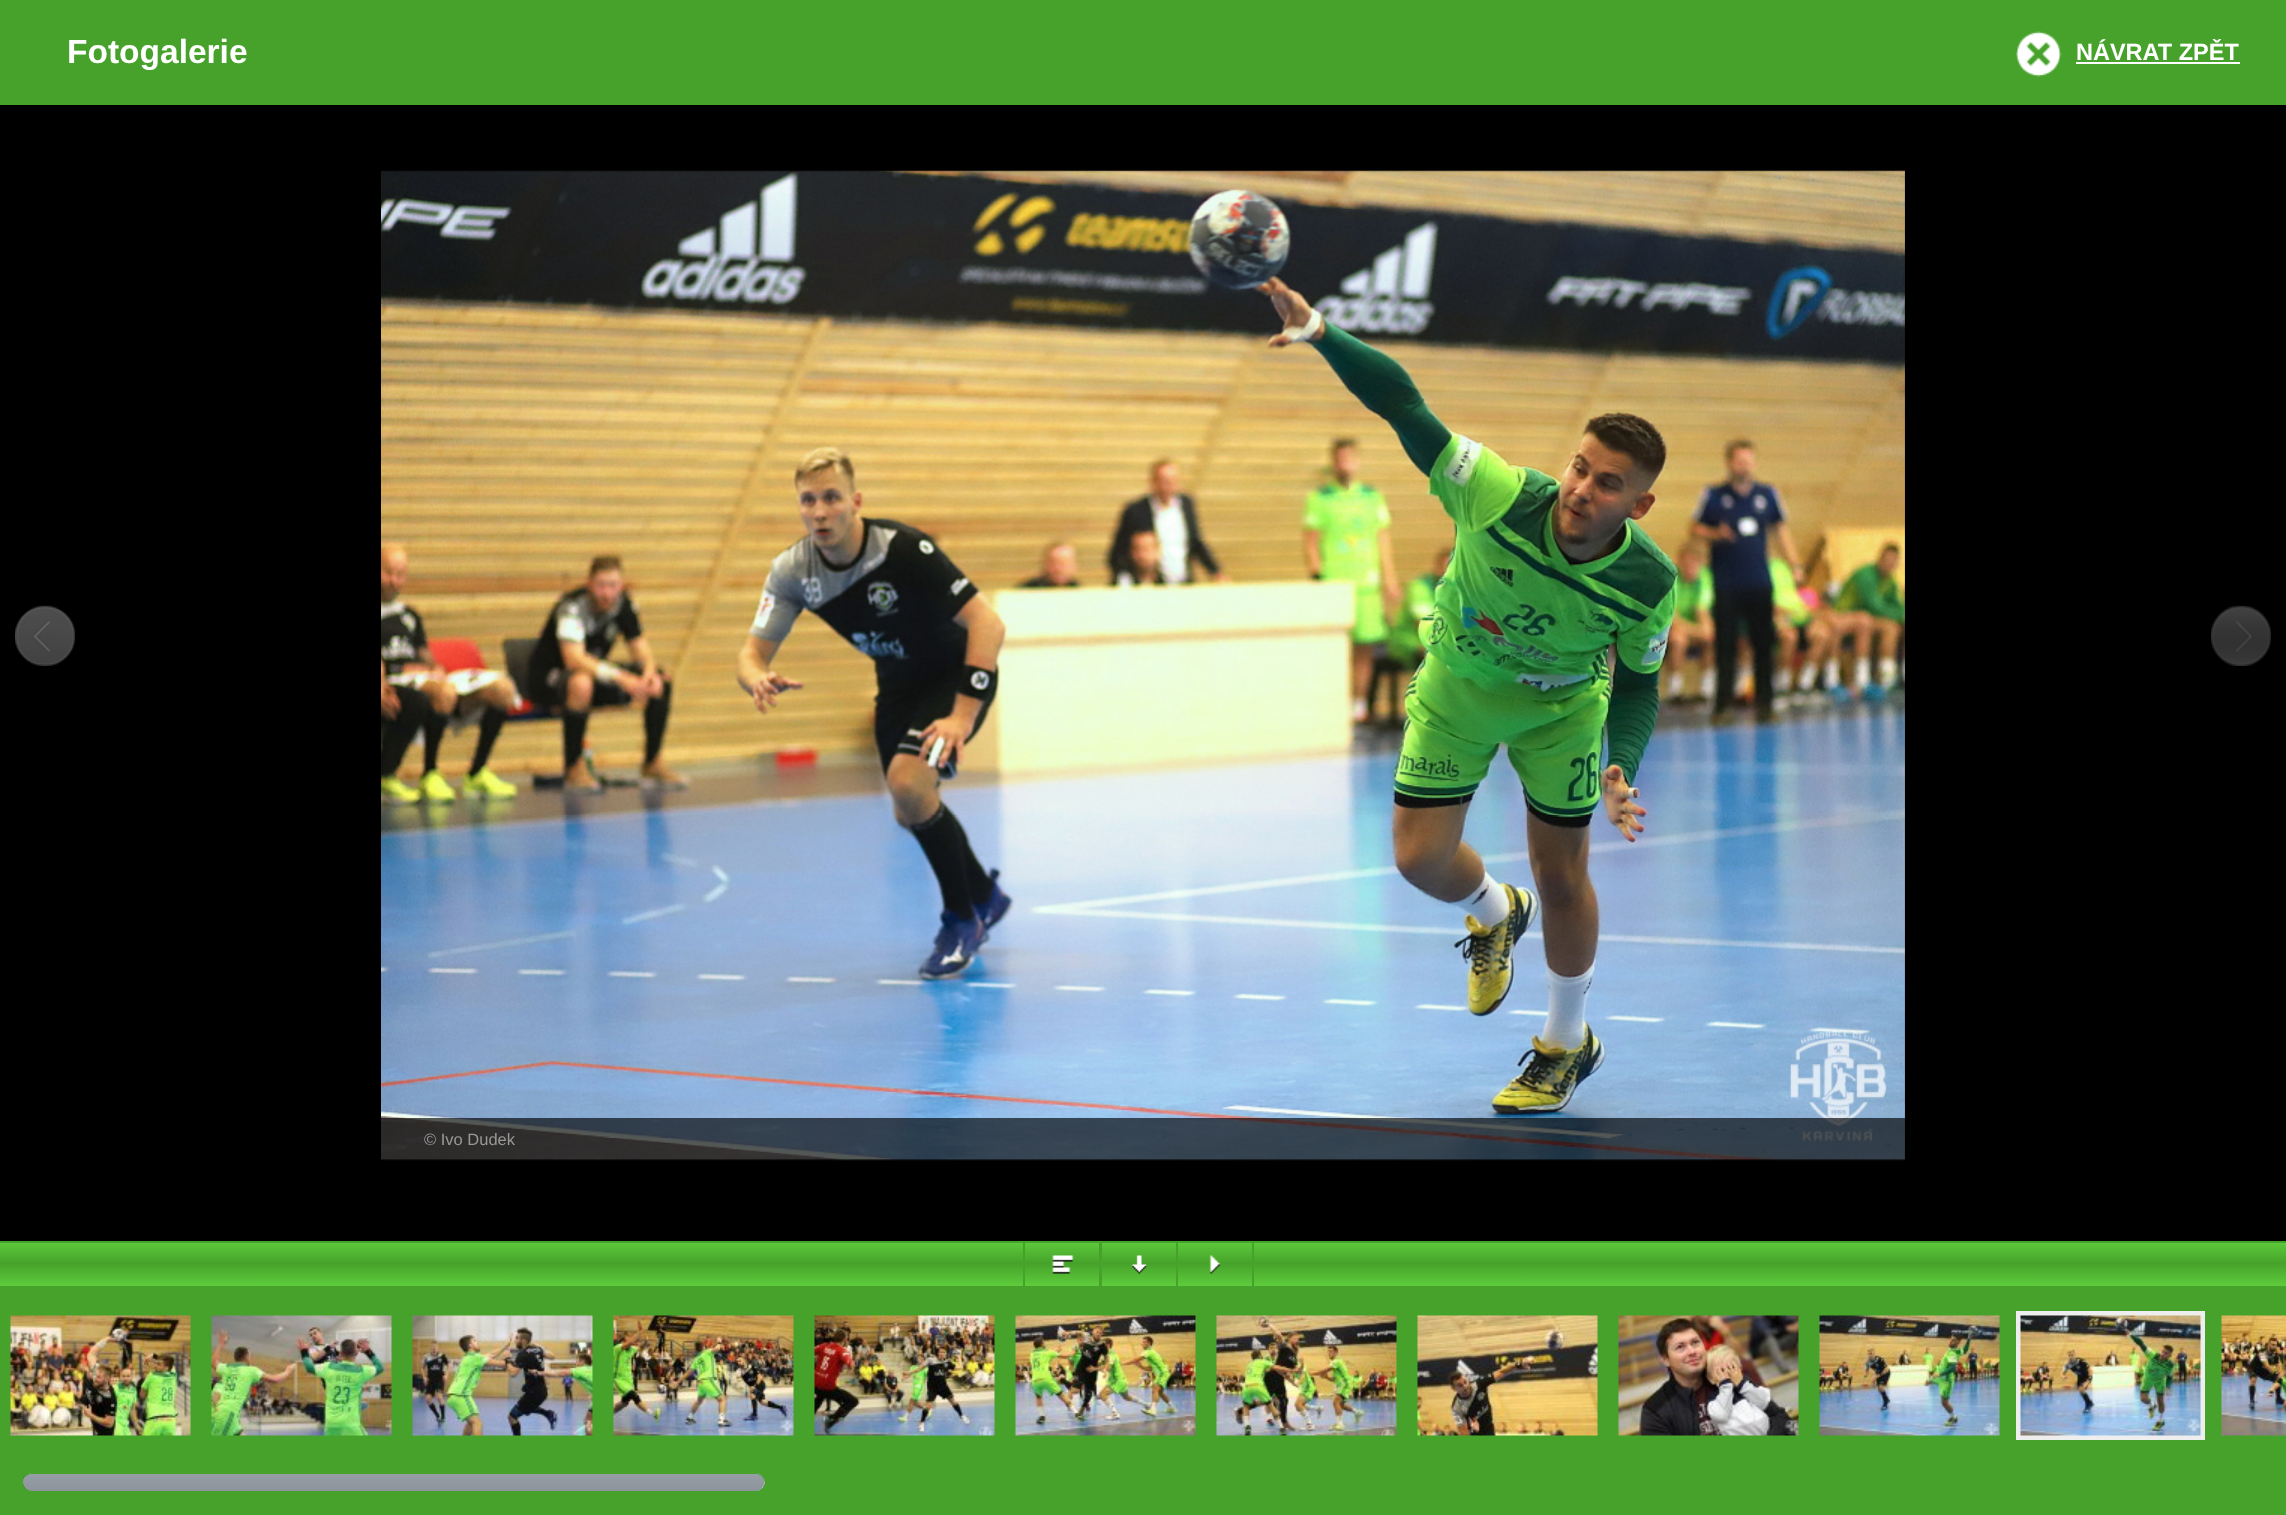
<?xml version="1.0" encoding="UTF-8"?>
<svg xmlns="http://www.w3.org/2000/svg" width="2286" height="1515">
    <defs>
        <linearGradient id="g1" gradientUnits="userSpaceOnUse" x1="1143" y1="1286" x2="1143" y2="1241"><stop offset="0" stop-color="#5ECC3C"/><stop offset="0.5" stop-color="#46A22A"/><stop offset="1" stop-color="#5ECC3C"/></linearGradient>
    </defs>
    <rect width="100%" height="100%" fill="#000000"/>
    <rect x="0" y="0" width="2286" height="105" fill="#46A22A"/>
    <text x="67" y="63" font-family="Liberation Sans" font-size="33.5" font-weight="700" fill="#FFFFFF">Fotogalerie</text>
    <image x="2016" y="31" width="46" height="46" href="img_01.png"/>
    <text x="2076" y="60" font-family="Liberation Sans" font-size="23.5" font-weight="700" fill="#FFFFFF">NÁVRAT ZPĚT</text>
    <rect x="2076" y="62" width="164" height="2" fill="#FFFFFF"/>
    <image x="15" y="605" width="60" height="61" href="img_02.png"/>
    <image x="2211" y="605" width="60" height="61" href="img_03.png"/>
    <image x="381" y="170" width="1524" height="991" href="img_04.png"/>
    <rect x="381" y="1118" width="1524" height="43" fill="#000000" fill-opacity="0.65"/>
    <text x="424" y="1145" font-family="Liberation Sans" font-size="16.5" fill="#999999">© Ivo Dudek</text>
    <rect x="0" y="1243" width="2286" height="43" fill="url(#g1)"/>
    <rect x="0" y="1241" width="2286" height="2" fill="#46A22A"/>
    <rect x="1024" y="1242" width="76" height="46" fill="none" stroke="#46A22A" stroke-width="2"/>
    <image x="1052" y="1255" width="22" height="19" href="img_05.png"/>
    <rect x="1101" y="1242" width="76" height="46" fill="none" stroke="#46A22A" stroke-width="2"/>
    <image x="1132" y="1255" width="15" height="19" href="img_06.png"/>
    <rect x="1177" y="1242" width="76" height="46" fill="none" stroke="#46A22A" stroke-width="2"/>
    <image x="1209" y="1255" width="12" height="19" href="img_07.png"/>
    <rect x="0" y="1286" width="2286" height="229" fill="#46A22A"/>
    <image x="10" y="1315" width="181" height="121" href="img_08.png"/>
    <image x="211" y="1315" width="181" height="121" href="img_09.png"/>
    <image x="412" y="1315" width="181" height="121" href="img_10.png"/>
    <image x="613" y="1315" width="181" height="121" href="img_11.png"/>
    <image x="814" y="1315" width="181" height="121" href="img_12.png"/>
    <image x="1015" y="1315" width="181" height="121" href="img_13.png"/>
    <image x="1216" y="1315" width="181" height="121" href="img_14.png"/>
    <image x="1417" y="1315" width="181" height="121" href="img_15.png"/>
    <image x="1618" y="1315" width="181" height="121" href="img_16.png"/>
    <image x="1819" y="1315" width="181" height="121" href="img_17.png"/>
    <rect x="2018.5" y="1313.5" width="184" height="124" fill="none" stroke="#EEEEEE" stroke-width="5"/>
    <image x="2020" y="1315" width="181" height="121" href="img_18.png"/>
    <image x="2221" y="1315" width="65" height="121" href="img_19.png"/>
    <rect x="23" y="1473" width="742" height="18" rx="9" fill="#FFFFFF"/>
    <image x="23" y="1473" width="743" height="18" href="img_20.png"/>
    <path d="M 32 1474 H 756 C 761 1474 764 1478 765 1483 C 766 1478 761 1473 756 1473 H 32 C 28 1473 25 1476 23 1479 C 25 1476 29 1474 32 1474 Z" fill="#46A22A"/>
</svg>
